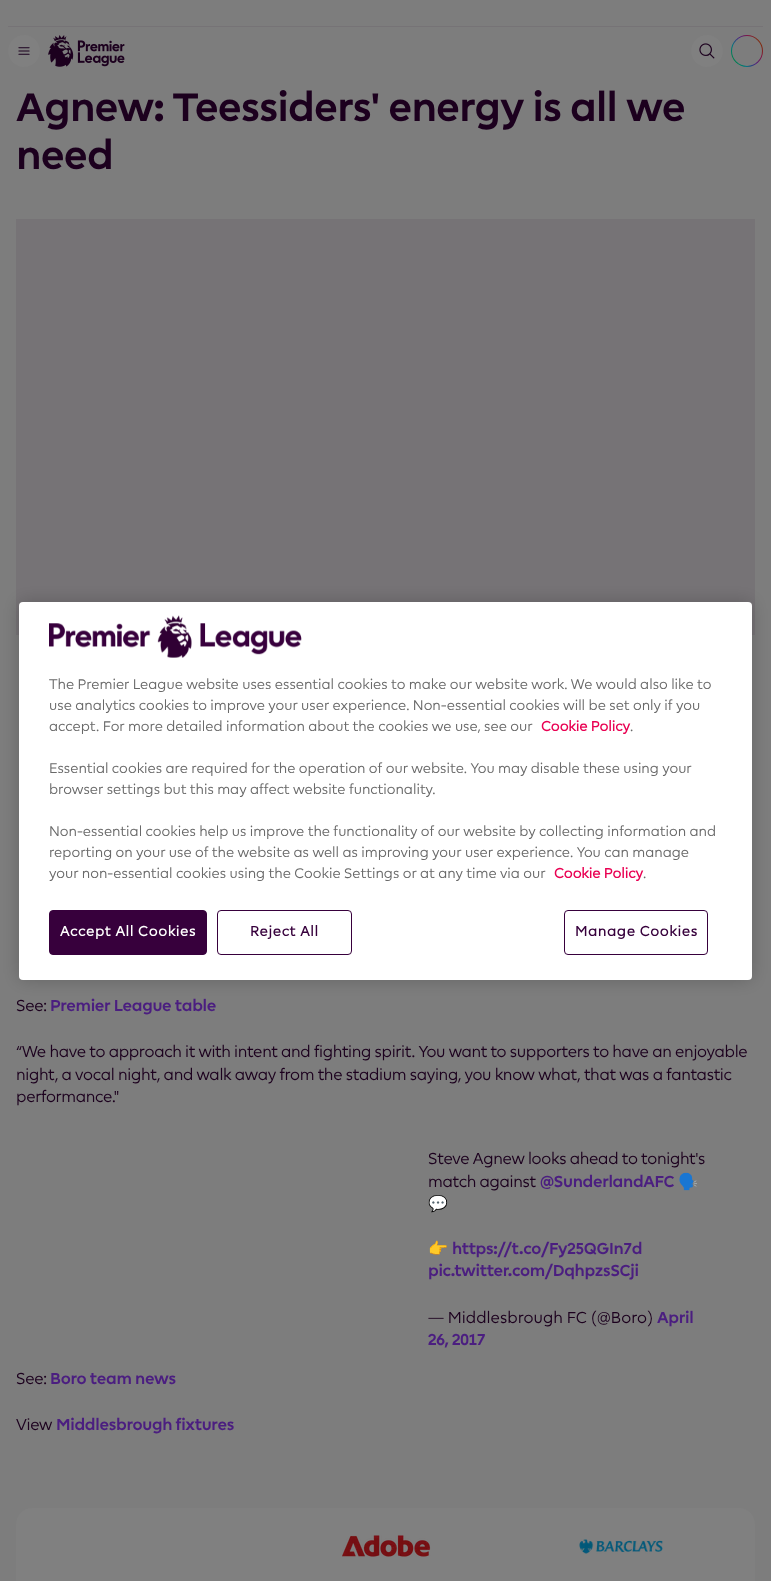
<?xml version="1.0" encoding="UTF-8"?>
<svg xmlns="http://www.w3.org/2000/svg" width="771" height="1581">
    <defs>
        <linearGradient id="g1" gradientUnits="userSpaceOnUse" x1="728" y1="63" x2="766" y2="39"><stop offset="0.03" stop-color="#768000"/><stop offset="0.12" stop-color="#008044"/><stop offset="0.29" stop-color="#037880"/><stop offset="0.51" stop-color="#4B1E80"/><stop offset="0.71" stop-color="#801441"/><stop offset="0.89" stop-color="#803500"/></linearGradient>
        <filter id="blur1" x="-50%" y="-200%" width="200%" height="500%"><feGaussianBlur stdDeviation="9"/></filter>
    </defs>
    <rect width="100%" height="100%" fill="#7D7D7D"/>
    <rect x="8" y="26" width="755" height="1" fill="#767376"/>
    <circle cx="24" cy="51" r="16" fill="#808080"/>
    <image x="18" y="47" width="12" height="8" href="img_01.png"/>
    <image x="48" y="35" width="77" height="32" href="img_02.png"/>
    <circle cx="707" cy="51" r="16" fill="#808080"/>
    <image x="699" y="43" width="16" height="16" href="img_03.png"/>
    <circle cx="747" cy="51" r="16" fill="url(#g1)"/>
    <circle cx="747" cy="51" r="15" fill="#7D7D7D"/>
    <text font-family="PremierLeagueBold" font-size="40" font-weight="700" letter-spacing="-0.8" fill="#1C001E">
        <tspan x="16" y="121">Agnew: Teessiders' energy is all we</tspan>
        <tspan x="16" y="169">need</tspan>
    </text>
    <rect x="16" y="219" width="739" height="416" fill="#767376"/>
    <text x="16" y="1011" font-family="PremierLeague" font-size="16" letter-spacing="-0.32" fill="#1C001E">See:</text>
    <text x="50" y="1011" font-family="PremierLeagueBold" font-size="16" font-weight="700" letter-spacing="-0.32" fill="#4B1E80">Premier League table</text>
    <text font-family="PremierLeague" font-size="16" letter-spacing="-0.32" fill="#1C001E">
        <tspan x="16" y="1057">“We have to approach it with intent and fighting spirit. You want to supporters to have an enjoyable</tspan>
        <tspan x="16" y="1080">night, a vocal night, and walk away from the stadium saying, you know what, that was a fantastic</tspan>
        <tspan x="16" y="1102">performance."</tspan>
    </text>
    <text font-family="PremierLeague" font-size="16" letter-spacing="-0.32" fill="#1C001E">
        <tspan x="428" y="1164">Steve Agnew looks ahead to tonight's</tspan>
        <tspan x="428" y="1187">match against</tspan>
    </text>
    <text x="540" y="1187" font-family="PremierLeagueBold" font-size="16" font-weight="700" letter-spacing="-0.32" fill="#4B1E80">@SunderlandAFC</text>
    <text x="678" y="1187" font-family="Noto Color Emoji" font-size="16" letter-spacing="-0.32" fill="#1C001E">🗣️</text>
    <text x="428" y="1209" font-family="Noto Color Emoji" font-size="16" letter-spacing="-0.32" fill="#1C001E">💬</text>
    <text x="428" y="1254" font-family="Noto Color Emoji" font-size="16" letter-spacing="-0.32" fill="#1C001E">👉</text>
    <text x="452" y="1254" font-family="PremierLeagueBold" font-size="16" font-weight="700" letter-spacing="-0.32" fill="#4B1E80">https://t.co/Fy25QGIn7d</text>
    <text x="428" y="1276" font-family="PremierLeagueBold" font-size="16" font-weight="700" letter-spacing="-0.32" fill="#4B1E80">pic.twitter.com/DqhpzsSCji</text>
    <text x="428" y="1323" font-family="PremierLeague" font-size="16" fill="#1C001E">— Middlesbrough FC (@Boro)</text>
    <text x="657" y="1323" font-family="PremierLeagueBold" font-size="16" font-weight="700" letter-spacing="-0.32" fill="#4B1E80">April</text>
    <text x="428" y="1345" font-family="PremierLeagueBold" font-size="16" font-weight="700" letter-spacing="-0.32" fill="#4B1E80">26, 2017</text>
    <text x="16" y="1384" font-family="PremierLeague" font-size="16" letter-spacing="-0.32" fill="#1C001E">See:</text>
    <text x="50" y="1384" font-family="PremierLeagueBold" font-size="16" font-weight="700" letter-spacing="-0.32" fill="#4B1E80">Boro team news</text>
    <text x="16" y="1430" font-family="PremierLeague" font-size="16" letter-spacing="-0.32" fill="#1C001E">View</text>
    <text x="56" y="1430" font-family="PremierLeagueBold" font-size="16" font-weight="700" letter-spacing="-0.32" fill="#4B1E80">Middlesbrough fixtures</text>
    <rect x="19" y="602" width="733" height="378" rx="4" fill="#000000" fill-opacity="0.2" filter="url(#blur1)"/>
    <rect x="19" y="602" width="733" height="378" rx="4" fill="#FFFFFF"/>
    <image x="49" y="615" width="253" height="43" href="img_04.png"/>
    <text font-family="PremierLeague" font-size="14" fill="#696969">
        <tspan x="49" y="689">The Premier League website uses essential cookies to make our website work. We would also like to</tspan>
        <tspan x="49" y="710">use analytics cookies to improve your user experience. Non-essential cookies will be set only if you</tspan>
        <tspan x="49" y="731">accept. For more detailed information about the cookies we use, see our</tspan>
    </text>
    <text x="541" y="731" font-family="PremierLeague" font-size="14" font-weight="700" fill="#E90052">Cookie Policy</text>
    <text x="630" y="731" font-family="PremierLeague" font-size="14" fill="#696969">.</text>
    <text font-family="PremierLeague" font-size="14" fill="#696969">
        <tspan x="49" y="773">Essential cookies are required for the operation of our website. You may disable these using your</tspan>
        <tspan x="49" y="794">browser settings but this may affect website functionality.</tspan>
    </text>
    <text font-family="PremierLeague" font-size="14" fill="#696969">
        <tspan x="49" y="836">Non-essential cookies help us improve the functionality of our website by collecting information and</tspan>
        <tspan x="49" y="857">reporting on your use of the website as well as improving your user experience. You can manage</tspan>
        <tspan x="49" y="878">your non-essential cookies using the Cookie Settings or at any time via our</tspan>
    </text>
    <text x="554" y="878" font-family="PremierLeague" font-size="14" font-weight="700" fill="#E90052">Cookie Policy</text>
    <text x="643" y="878" font-family="PremierLeague" font-size="14" fill="#696969">.</text>
    <rect x="49.5" y="910.5" width="157" height="44" rx="3.5" fill="#37003C" stroke="#37003C"/>
    <text x="60" y="936" font-family="PremierLeague" font-size="14" font-weight="700" letter-spacing="0.75" fill="#FFFFFF">Accept All Cookies</text>
    <rect x="217.5" y="910.5" width="134" height="44" rx="3.5" fill="none" stroke="#37003C"/>
    <text x="250" y="936" font-family="PremierLeague" font-size="14" font-weight="700" letter-spacing="0.75" fill="#37003C">Reject All</text>
    <rect x="564.5" y="910.5" width="143" height="44" rx="3.5" fill="none" stroke="#37003C"/>
    <text x="575" y="936" font-family="PremierLeague" font-size="14" font-weight="700" letter-spacing="0.75" fill="#37003C">Manage Cookies</text>
    <rect x="16" y="1508" width="739" height="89" rx="16" fill="#808080"/>
    <image x="342" y="1535" width="89" height="22" href="img_05.png"/>
    <image x="579" y="1539" width="84" height="15" href="img_06.png"/>
</svg>
